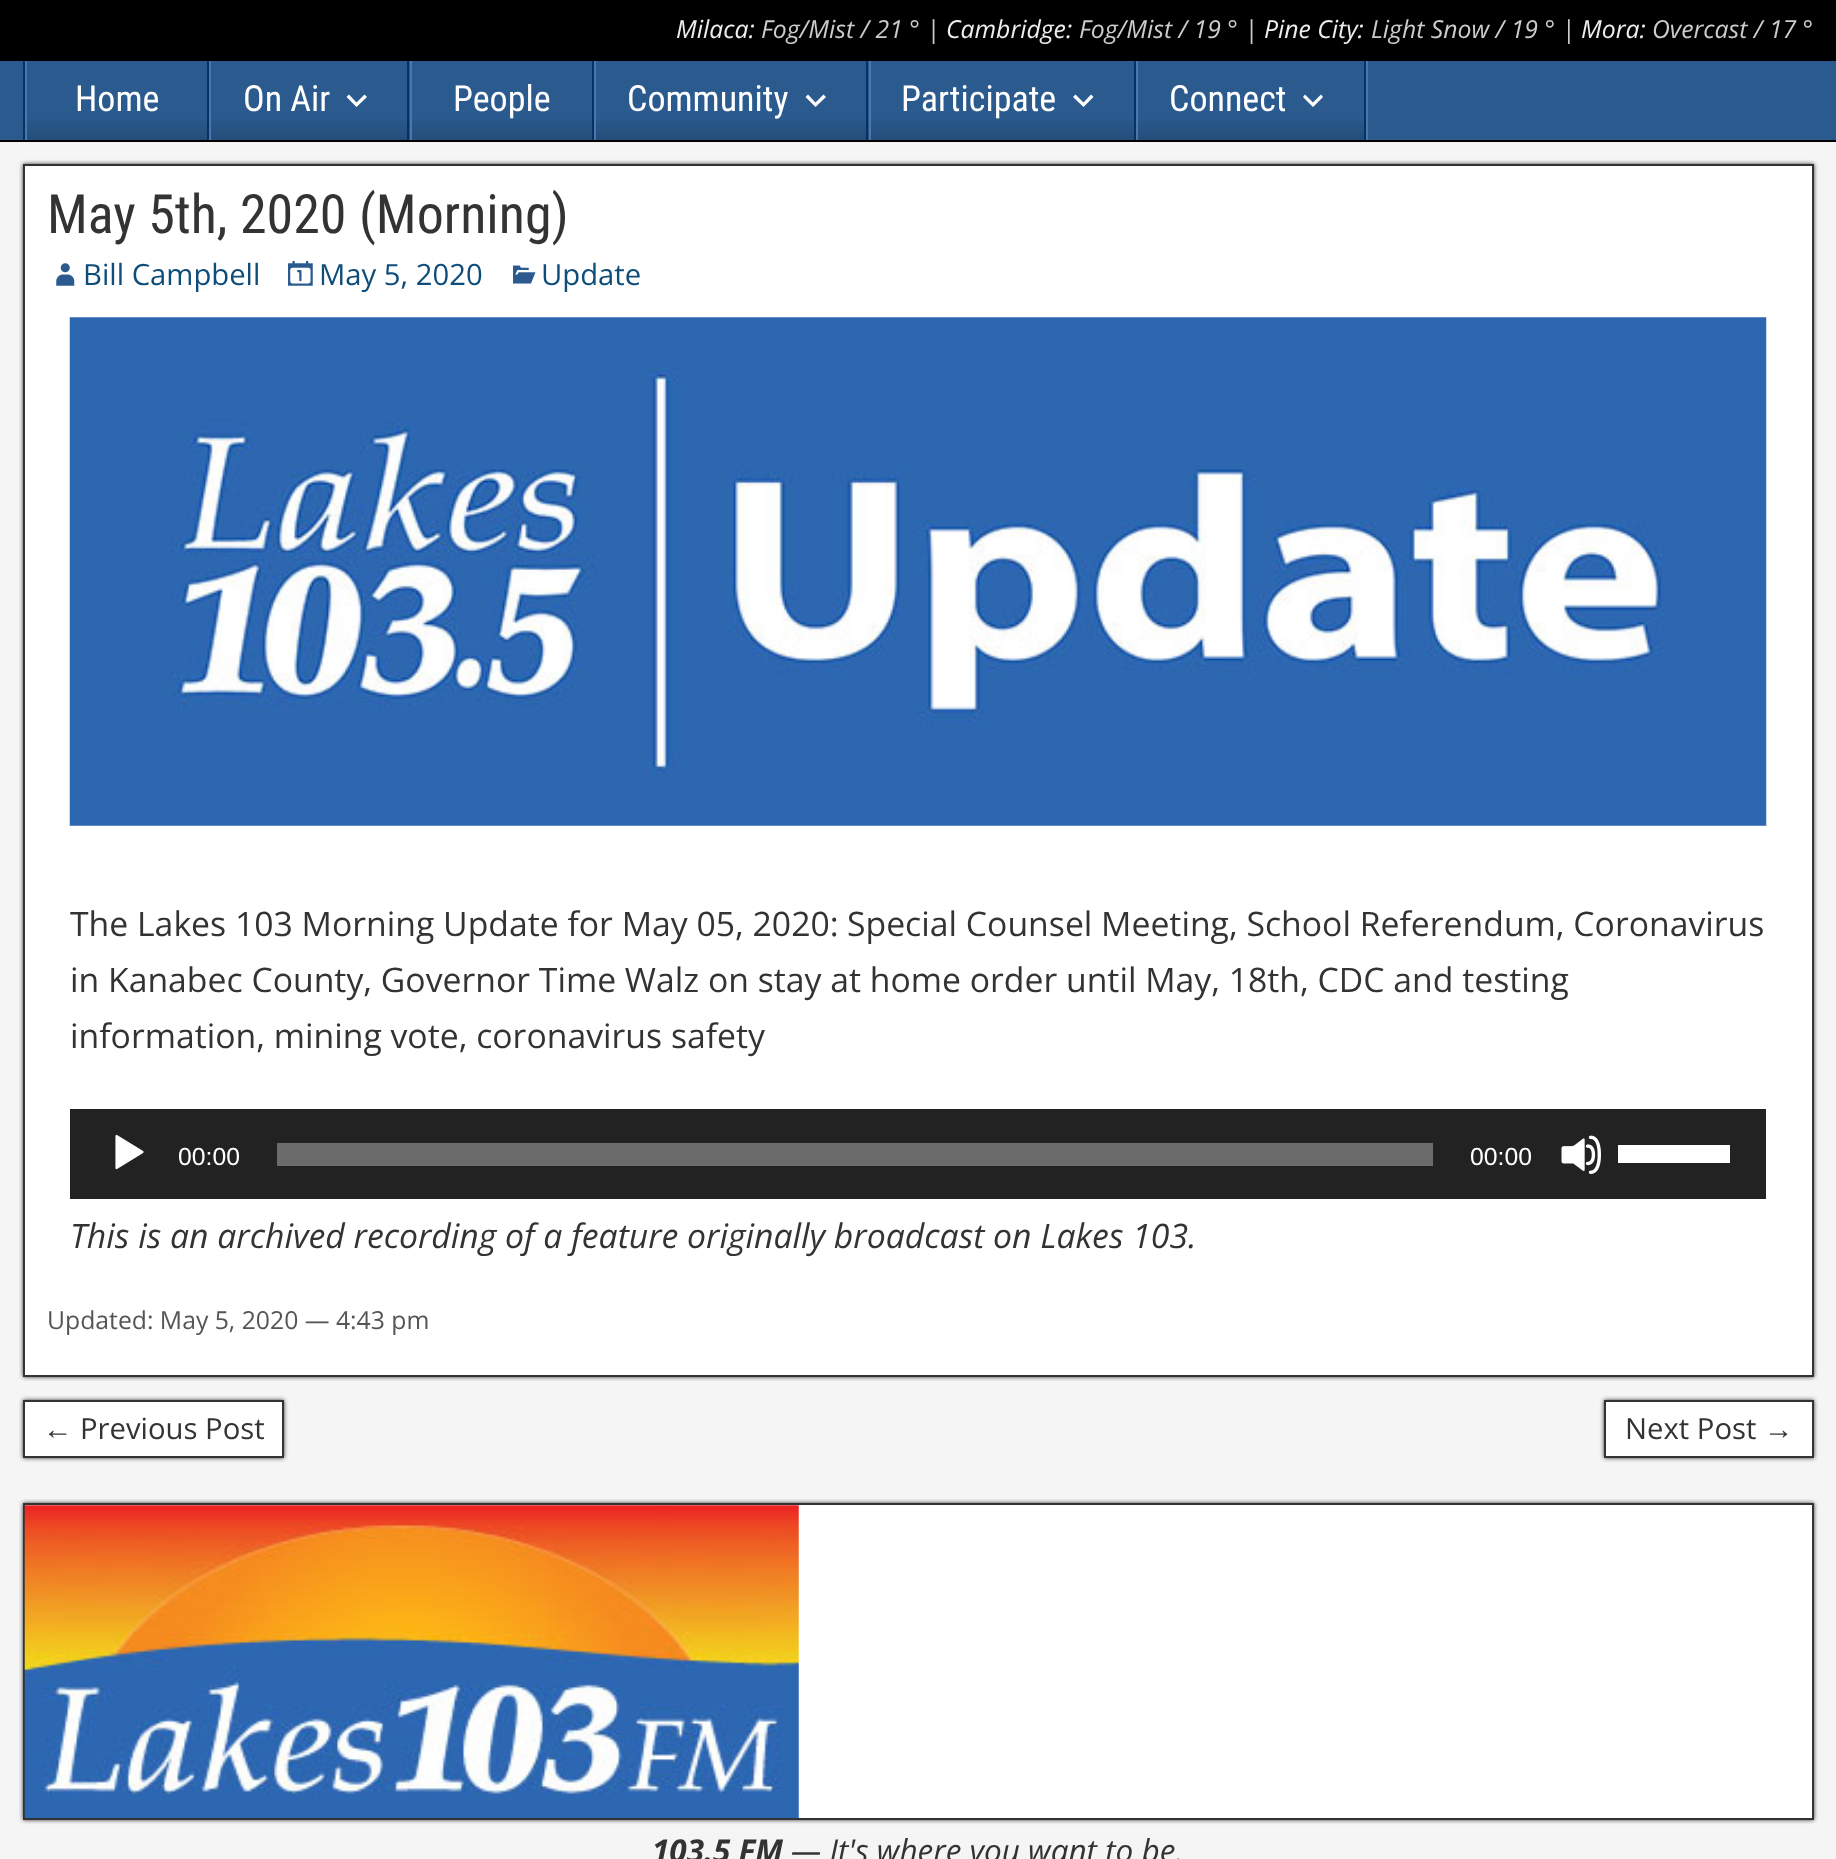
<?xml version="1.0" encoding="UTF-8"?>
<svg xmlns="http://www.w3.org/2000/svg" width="1836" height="1859">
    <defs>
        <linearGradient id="g1" gradientUnits="userSpaceOnUse" x1="117" y1="61" x2="117" y2="140"><stop offset="0.7" stop-color="#2A5A8E"/><stop offset="1" stop-color="#244D79"/></linearGradient>
        <linearGradient id="g2" gradientUnits="userSpaceOnUse" x1="309" y1="61" x2="309" y2="140"><stop offset="0.7" stop-color="#2A5A8E"/><stop offset="1" stop-color="#244D79"/></linearGradient>
        <linearGradient id="g3" gradientUnits="userSpaceOnUse" x1="502" y1="61" x2="502" y2="140"><stop offset="0.7" stop-color="#2A5A8E"/><stop offset="1" stop-color="#244D79"/></linearGradient>
        <linearGradient id="g4" gradientUnits="userSpaceOnUse" x1="731" y1="61" x2="731" y2="140"><stop offset="0.7" stop-color="#2A5A8E"/><stop offset="1" stop-color="#244D79"/></linearGradient>
        <linearGradient id="g5" gradientUnits="userSpaceOnUse" x1="1002" y1="61" x2="1002" y2="140"><stop offset="0.7" stop-color="#2A5A8E"/><stop offset="1" stop-color="#244D79"/></linearGradient>
        <linearGradient id="g6" gradientUnits="userSpaceOnUse" x1="1251" y1="61" x2="1251" y2="140"><stop offset="0.7" stop-color="#2A5A8E"/><stop offset="1" stop-color="#244D79"/></linearGradient>
        <filter id="blur1" x="-50%" y="-200%" width="200%" height="500%"><feGaussianBlur stdDeviation="2"/></filter>
    </defs>
    <rect width="100%" height="100%" fill="#000000"/>
    <text x="676" y="38" font-family="Open Sans" font-size="24.75" font-style="italic" fill="#EEEEEE">Milaca:</text>
    <text x="761" y="38" font-family="Open Sans" font-size="24.75" font-style="italic" fill="#CCCCCC">Fog/Mist / 21 ° |</text>
    <text x="946" y="38" font-family="Open Sans" font-size="24.75" font-style="italic" fill="#EEEEEE">Cambridge:</text>
    <text x="1079" y="38" font-family="Open Sans" font-size="24.75" font-style="italic" fill="#CCCCCC">Fog/Mist / 19 ° |</text>
    <text x="1264" y="38" font-family="Open Sans" font-size="24.75" font-style="italic" fill="#EEEEEE">Pine City:</text>
    <text x="1371" y="38" font-family="Open Sans" font-size="24.75" font-style="italic" fill="#CCCCCC">Light Snow / 19 ° |</text>
    <text x="1581" y="38" font-family="Open Sans" font-size="24.75" font-style="italic" fill="#EEEEEE">Mora:</text>
    <text x="1652" y="38" font-family="Open Sans" font-size="24.75" font-style="italic" fill="#CCCCCC">Overcast / 17 °</text>
    <rect x="0" y="61" width="1836" height="79" fill="#2A5A8E"/>
    <rect x="1366" y="61" width="2" height="79" fill="#4878AC"/>
    <rect x="23" y="61" width="2" height="79" fill="#023266"/>
    <rect x="27" y="119" width="180" height="21" fill="url(#g1)"/>
    <rect x="207" y="61" width="2" height="79" fill="#023266"/>
    <rect x="25" y="61" width="2" height="79" fill="#4878AC"/>
    <text x="75" y="111" font-family="Roboto Condensed" font-size="36" fill="#FFFFFF">Home</text>
    <rect x="211" y="119" width="199" height="21" fill="url(#g2)"/>
    <rect x="407" y="61" width="2" height="79" fill="#023266"/>
    <rect x="209" y="61" width="2" height="79" fill="#4878AC"/>
    <text x="243" y="111" font-family="Roboto Condensed" font-size="36" fill="#FFFFFF">On Air</text>
    <path d="M 367 97 L 356.5 107 L 346.5 97 L 349 94.5 L 356.5 102.5 L 364.5 94.5 Z" fill="#FFFFFF"/>
    <rect x="412" y="119" width="180" height="21" fill="url(#g3)"/>
    <rect x="592" y="61" width="2" height="79" fill="#023266"/>
    <rect x="410" y="61" width="2" height="79" fill="#4878AC"/>
    <text x="453" y="111" font-family="Roboto Condensed" font-size="36" fill="#FFFFFF">People</text>
    <rect x="596" y="119" width="273" height="21" fill="url(#g4)"/>
    <rect x="866" y="61" width="2" height="79" fill="#023266"/>
    <rect x="594" y="61" width="2" height="79" fill="#4878AC"/>
    <text x="627" y="111" font-family="Roboto Condensed" font-size="36" fill="#FFFFFF">Community</text>
    <path d="M 826 97 L 815.5 107 L 805.5 97 L 808 94.5 L 815.5 102.5 L 823.5 94.5 Z" fill="#FFFFFF"/>
    <rect x="871" y="119" width="263" height="21" fill="url(#g5)"/>
    <rect x="1134" y="61" width="2" height="79" fill="#023266"/>
    <rect x="869" y="61" width="2" height="79" fill="#4878AC"/>
    <text x="901" y="111" font-family="Roboto Condensed" font-size="36" fill="#FFFFFF">Participate</text>
    <path d="M 1093.5 97 L 1083.5 107 L 1073 97 L 1075.5 94.5 L 1083.5 102.5 L 1091 94.5 Z" fill="#FFFFFF"/>
    <rect x="1138" y="119" width="226" height="21" fill="url(#g6)"/>
    <rect x="1364" y="61" width="2" height="79" fill="#023266"/>
    <rect x="1136" y="61" width="2" height="79" fill="#4878AC"/>
    <text x="1169" y="111" font-family="Roboto Condensed" font-size="36" fill="#FFFFFF">Connect</text>
    <path d="M 1323 97 L 1313 107 L 1303 97 L 1305 94.5 L 1313 102.5 L 1321 94.5 Z" fill="#FFFFFF"/>
    <rect x="0" y="142" width="1836" height="1717" fill="#F5F5F5"/>
    <rect x="23" y="164" width="1791" height="1213" fill="#333333" filter="url(#blur1)"/>
    <rect x="24" y="165" width="1789" height="1211" fill="#FFFFFF" stroke="#333333" stroke-width="2"/>
    <text x="47" y="233" font-family="Roboto Condensed" font-size="54" fill="#333333">May 5th, 2020 (Morning)</text>
    <image x="56" y="263" width="19" height="23" href="img_01.png"/>
    <text x="83" y="285" font-family="Open Sans" font-size="29.25" fill="#0E4D7A">Bill Campbell</text>
    <image x="288" y="261" width="25" height="25" href="img_02.png"/>
    <text x="319" y="285" font-family="Open Sans" font-size="29.25" fill="#0E4D7A">May 5, 2020</text>
    <image x="513" y="265" width="23" height="19" href="img_03.png"/>
    <text x="541" y="285" font-family="Open Sans" font-size="29.25" fill="#0E4D7A">Update</text>
    <image x="69" y="317" width="1698" height="509" href="img_04.png"/>
    <text x="70" y="936" font-family="Open Sans" font-size="33.75" fill="#333333">The Lakes 103 Morning Update for May 05, 2020:</text>
    <text x="847" y="936" font-family="Open Sans" font-size="33.75" fill="#333333">Special Counsel Meeting, School Referendum, Coronavirus</text>
    <text font-family="Open Sans" font-size="33.75" fill="#333333">
        <tspan x="70" y="992">in Kanabec County, Governor Time Walz on stay at home order until May, 18th, CDC and testing</tspan>
        <tspan x="70" y="1048">information, mining vote, coronavirus safety</tspan>
    </text>
    <rect x="70" y="1109" width="1696" height="90" fill="#222222"/>
    <image x="115" y="1134" width="29" height="36" href="img_05.png"/>
    <text x="178" y="1165" font-family="Liberation Sans" font-size="24.75" fill="#FFFFFF">00:00</text>
    <rect x="277" y="1143" width="1156" height="23" fill="#6B6B6B"/>
    <text x="1470" y="1165" font-family="Liberation Sans" font-size="24.75" fill="#FFFFFF">00:00</text>
    <image x="1561" y="1135" width="40" height="39" href="img_06.png"/>
    <rect x="1618" y="1145" width="112" height="18" fill="#FFFFFF"/>
    <text x="70" y="1248" font-family="Open Sans" font-size="33.75" font-style="italic" fill="#333333">This is an archived recording of a feature originally broadcast on Lakes 103.</text>
    <text x="47" y="1329" font-family="Open Sans" font-size="24.75" fill="#555555">Updated: May 5, 2020 — 4:43 pm</text>
    <rect x="23" y="1400" width="261" height="58" fill="#333333" filter="url(#blur1)"/>
    <rect x="24" y="1401" width="259" height="56" fill="#FFFFFF" stroke="#333333" stroke-width="2"/>
    <text x="43" y="1439" font-family="Liberation Sans" font-size="29.25" fill="#333333">←</text>
    <text x="80" y="1439" font-family="Open Sans" font-size="29.25" fill="#333333">Previous Post</text>
    <rect x="1604" y="1400" width="210" height="58" fill="#333333" filter="url(#blur1)"/>
    <rect x="1605" y="1401" width="208" height="56" fill="#FFFFFF" stroke="#333333" stroke-width="2"/>
    <text x="1625" y="1439" font-family="Open Sans" font-size="29.25" fill="#333333">Next Post</text>
    <text x="1764" y="1439" font-family="Liberation Sans" font-size="29.25" fill="#333333">→</text>
    <rect x="23" y="1503" width="1791" height="317" fill="#333333" filter="url(#blur1)"/>
    <rect x="24" y="1504" width="1789" height="315" fill="#FFFFFF" stroke="#333333" stroke-width="2"/>
    <image x="24" y="1505" width="775" height="313" href="img_07.png"/>
    <text x="652" y="1862" font-family="Open Sans" font-size="31.5" font-weight="700" font-style="italic" fill="#333333">103.5 FM</text>
    <text x="791" y="1862" font-family="Open Sans" font-size="31.5" font-style="italic" fill="#333333">— It's where you want to be.</text>
</svg>
